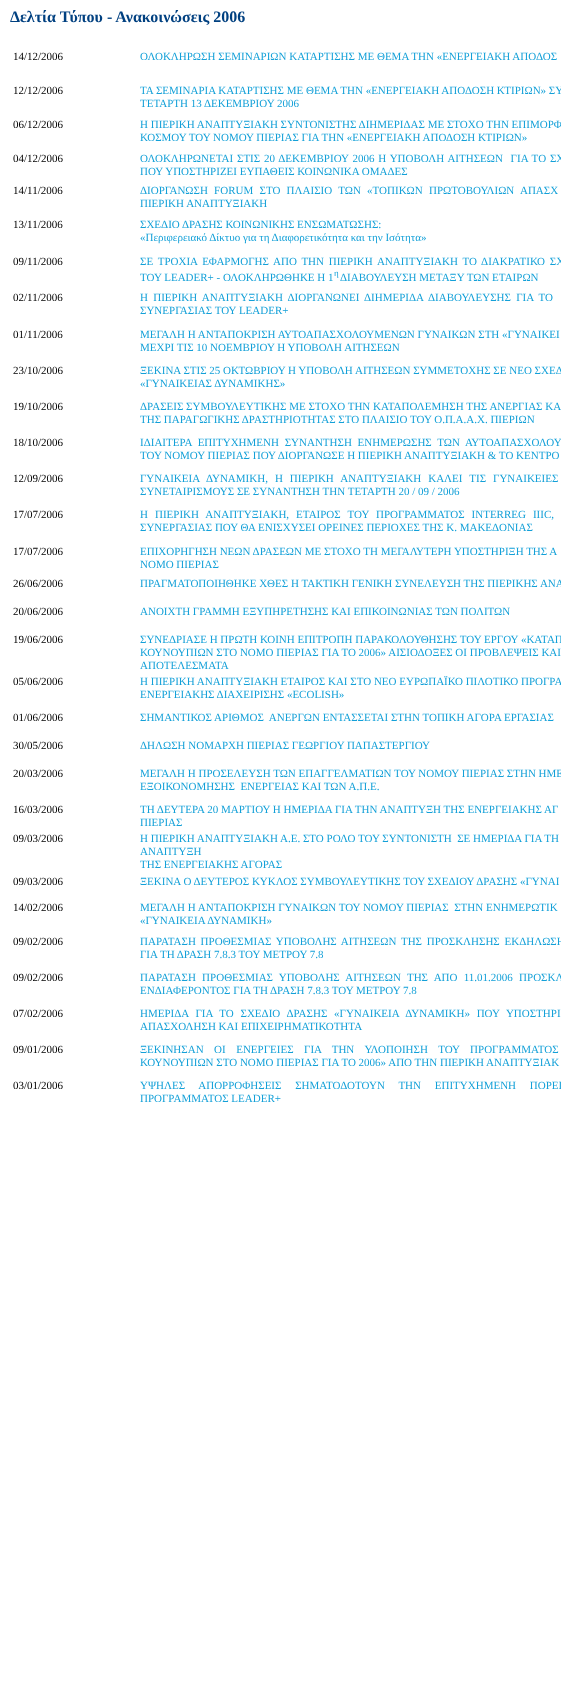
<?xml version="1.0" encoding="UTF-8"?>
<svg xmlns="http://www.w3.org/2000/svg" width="561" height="1686">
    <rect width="100%" height="100%" fill="#FFFFFF"/>
    <text x="10" y="22" font-family="Liberation Serif" font-size="16" font-weight="700" fill="#004080">Δελτία Τύπου - Ανακοινώσεις 2006</text>
    <text x="13" y="60" font-family="Liberation Serif" font-size="11" fill="#000000">14/12/2006</text>
    <text x="140" y="60" font-family="Liberation Serif" font-size="11" fill="#13A0D8">ΟΛΟΚΛΗΡΩΣΗ ΣΕΜΙΝΑΡΙΩΝ ΚΑΤΑΡΤΙΣΗΣ ΜΕ ΘΕΜΑ ΤΗΝ «ΕΝΕΡΓΕΙΑΚΗ ΑΠΟΔΟΣ</text>
    <text x="13" y="94" font-family="Liberation Serif" font-size="11" fill="#000000">12/12/2006</text>
    <text font-family="Liberation Serif" font-size="11" fill="#13A0D8">
        <tspan x="140" y="94">ΤΑ ΣΕΜΙΝΑΡΙΑ ΚΑΤΑΡΤΙΣΗΣ ΜΕ ΘΕΜΑ ΤΗΝ «ΕΝΕΡΓΕΙΑΚΗ ΑΠΟΔΟΣΗ ΚΤΙΡΙΩΝ» ΣΥ</tspan>
        <tspan x="140" y="107">ΤΕΤΑΡΤΗ 13 ΔΕΚΕΜΒΡΙΟΥ 2006</tspan>
    </text>
    <text x="13" y="128" font-family="Liberation Serif" font-size="11" fill="#000000">06/12/2006</text>
    <text font-family="Liberation Serif" font-size="11" fill="#13A0D8">
        <tspan x="140" y="128">Η ΠΙΕΡΙΚΗ ΑΝΑΠΤΥΞΙΑΚΗ ΣΥΝΤΟΝΙΣΤΗΣ ΔΙΗΜΕΡΙΔΑΣ ΜΕ ΣΤΟΧΟ ΤΗΝ ΕΠΙΜΟΡΦ</tspan>
        <tspan x="140" y="141">ΚΟΣΜΟΥ ΤΟΥ ΝΟΜΟΥ ΠΙΕΡΙΑΣ ΓΙΑ ΤΗΝ «ΕΝΕΡΓΕΙΑΚΗ ΑΠΟΔΟΣΗ ΚΤΙΡΙΩΝ»</tspan>
    </text>
    <text x="13" y="162" font-family="Liberation Serif" font-size="11" fill="#000000">04/12/2006</text>
    <text font-family="Liberation Serif" font-size="11" fill="#13A0D8" xml:space="preserve"><tspan x="140" y="162" word-spacing="1.1">ΟΛΟΚΛΗΡΩΝΕΤΑΙ ΣΤΙΣ 20 ΔΕΚΕΜΒΡΙΟΥ 2006 Η ΥΠΟΒΟΛΗ ΑΙΤΗΣΕΩΝ  ΓΙΑ ΤΟ ΣΧ</tspan><tspan x="140" y="175">ΠΟΥ ΥΠΟΣΤΗΡΙΖΕΙ ΕΥΠΑΘΕΙΣ ΚΟΙΝΩΝΙΚΑ ΟΜΑΔΕΣ</tspan></text>
    <text x="13" y="194" font-family="Liberation Serif" font-size="11" fill="#000000">14/11/2006</text>
    <text font-family="Liberation Serif" font-size="11" fill="#13A0D8">
        <tspan x="140" y="194" word-spacing="3.5">ΔΙΟΡΓΑΝΩΣΗ FORUM ΣΤΟ ΠΛΑΙΣΙΟ ΤΩΝ «ΤΟΠΙΚΩΝ ΠΡΩΤΟΒΟΥΛΙΩΝ ΑΠΑΣΧ</tspan>
        <tspan x="140" y="207">ΠΙΕΡΙΚΗ ΑΝΑΠΤΥΞΙΑΚΗ</tspan>
    </text>
    <text x="13" y="228" font-family="Liberation Serif" font-size="11" fill="#000000">13/11/2006</text>
    <text font-family="Liberation Serif" font-size="11" fill="#13A0D8">
        <tspan x="140" y="228">ΣΧΕΔΙΟ ΔΡΑΣΗΣ ΚΟΙΝΩΝΙΚΗΣ ΕΝΣΩΜΑΤΩΣΗΣ:</tspan>
        <tspan x="140" y="241">«Περιφερειακό Δίκτυο για τη Διαφορετικότητα και την Ισότητα»</tspan>
    </text>
    <text x="13" y="265" font-family="Liberation Serif" font-size="11" fill="#000000">09/11/2006</text>
    <text font-family="Liberation Serif" font-size="11" fill="#13A0D8">
        <tspan x="140" y="265" word-spacing="2">ΣΕ ΤΡΟΧΙΑ ΕΦΑΡΜΟΓΗΣ ΑΠΟ ΤΗΝ ΠΙΕΡΙΚΗ ΑΝΑΠΤΥΞΙΑΚΗ ΤΟ ΔΙΑΚΡΑΤΙΚΟ ΣΧ</tspan>
        <tspan x="140" y="281">ΤΟΥ LEADER+ - ΟΛΟΚΛΗΡΩΘΗΚΕ Η 1</tspan>
    </text>
    <text x="334" y="276" font-family="Liberation Serif" font-size="9" fill="#13A0D8">η</text>
    <text x="340" y="281" font-family="Liberation Serif" font-size="11" fill="#13A0D8">ΔΙΑΒΟΥΛΕΥΣΗ ΜΕΤΑΞΥ ΤΩΝ ΕΤΑΙΡΩΝ</text>
    <text x="13" y="301" font-family="Liberation Serif" font-size="11" fill="#000000">02/11/2006</text>
    <text font-family="Liberation Serif" font-size="11" fill="#13A0D8">
        <tspan x="140" y="301" word-spacing="2.5">Η ΠΙΕΡΙΚΗ ΑΝΑΠΤΥΞΙΑΚΗ ΔΙΟΡΓΑΝΩΝΕΙ ΔΙΗΜΕΡΙΔΑ ΔΙΑΒΟΥΛΕΥΣΗΣ ΓΙΑ ΤΟ</tspan>
        <tspan x="140" y="314">ΣΥΝΕΡΓΑΣΙΑΣ ΤΟΥ LEADER+</tspan>
    </text>
    <text x="13" y="338" font-family="Liberation Serif" font-size="11" fill="#000000">01/11/2006</text>
    <text font-family="Liberation Serif" font-size="11" fill="#13A0D8">
        <tspan x="140" y="338">ΜΕΓΑΛΗ Η ΑΝΤΑΠΟΚΡΙΣΗ ΑΥΤΟΑΠΑΣΧΟΛΟΥΜΕΝΩΝ ΓΥΝΑΙΚΩΝ ΣΤΗ «ΓΥΝΑΙΚΕΙ</tspan>
        <tspan x="140" y="351">ΜΕΧΡΙ ΤΙΣ 10 ΝΟΕΜΒΡΙΟΥ Η ΥΠΟΒΟΛΗ ΑΙΤΗΣΕΩΝ</tspan>
    </text>
    <text x="13" y="374" font-family="Liberation Serif" font-size="11" fill="#000000">23/10/2006</text>
    <text font-family="Liberation Serif" font-size="11" fill="#13A0D8">
        <tspan x="140" y="374">ΞΕΚΙΝΑ ΣΤΙΣ 25 ΟΚΤΩΒΡΙΟΥ Η ΥΠΟΒΟΛΗ ΑΙΤΗΣΕΩΝ ΣΥΜΜΕΤΟΧΗΣ ΣΕ ΝΕΟ ΣΧΕΔ</tspan>
        <tspan x="140" y="387">«ΓΥΝΑΙΚΕΙΑΣ ΔΥΝΑΜΙΚΗΣ»</tspan>
    </text>
    <text x="13" y="410" font-family="Liberation Serif" font-size="11" fill="#000000">19/10/2006</text>
    <text font-family="Liberation Serif" font-size="11" fill="#13A0D8">
        <tspan x="140" y="410">ΔΡΑΣΕΙΣ ΣΥΜΒΟΥΛΕΥΤΙΚΗΣ ΜΕ ΣΤΟΧΟ ΤΗΝ ΚΑΤΑΠΟΛΕΜΗΣΗ ΤΗΣ ΑΝΕΡΓΙΑΣ ΚΑ</tspan>
        <tspan x="140" y="423">ΤΗΣ ΠΑΡΑΓΩΓΙΚΗΣ ΔΡΑΣΤΗΡΙΟΤΗΤΑΣ ΣΤΟ ΠΛΑΙΣΙΟ ΤΟΥ Ο.Π.Α.Α.Χ. ΠΙΕΡΙΩΝ</tspan>
    </text>
    <text x="13" y="446" font-family="Liberation Serif" font-size="11" fill="#000000">18/10/2006</text>
    <text font-family="Liberation Serif" font-size="11" fill="#13A0D8">
        <tspan x="140" y="446" word-spacing="3">ΙΔΙΑΙΤΕΡΑ ΕΠΙΤΥΧΗΜΕΝΗ ΣΥΝΑΝΤΗΣΗ ΕΝΗΜΕΡΩΣΗΣ ΤΩΝ ΑΥΤΟΑΠΑΣΧΟΛΟΥ</tspan>
        <tspan x="140" y="459">ΤΟΥ ΝΟΜΟΥ ΠΙΕΡΙΑΣ ΠΟΥ ΔΙΟΡΓΑΝΩΣΕ Η ΠΙΕΡΙΚΗ ΑΝΑΠΤΥΞΙΑΚΗ &amp; ΤΟ ΚΕΝΤΡΟ</tspan>
    </text>
    <text x="13" y="482" font-family="Liberation Serif" font-size="11" fill="#000000">12/09/2006</text>
    <text font-family="Liberation Serif" font-size="11" fill="#13A0D8">
        <tspan x="140" y="482" word-spacing="4.25">ΓΥΝΑΙΚΕΙΑ ΔΥΝΑΜΙΚΗ, Η ΠΙΕΡΙΚΗ ΑΝΑΠΤΥΞΙΑΚΗ ΚΑΛΕΙ ΤΙΣ ΓΥΝΑΙΚΕΙΕΣ</tspan>
        <tspan x="140" y="495">ΣΥΝΕΤΑΙΡΙΣΜΟΥΣ ΣΕ ΣΥΝΑΝΤΗΣΗ ΤΗΝ ΤΕΤΑΡΤΗ 20 / 09 / 2006</tspan>
    </text>
    <text x="13" y="518" font-family="Liberation Serif" font-size="11" fill="#000000">17/07/2006</text>
    <text font-family="Liberation Serif" font-size="11" fill="#13A0D8">
        <tspan x="140" y="518" word-spacing="4.25">Η ΠΙΕΡΙΚΗ ΑΝΑΠΤΥΞΙΑΚΗ, ΕΤΑΙΡΟΣ ΤΟΥ ΠΡΟΓΡΑΜΜΑΤΟΣ INTERREG IIIC,</tspan>
        <tspan x="140" y="531">ΣΥΝΕΡΓΑΣΙΑΣ ΠΟΥ ΘΑ ΕΝΙΣΧΥΣΕΙ ΟΡΕΙΝΕΣ ΠΕΡΙΟΧΕΣ ΤΗΣ Κ. ΜΑΚΕΔΟΝΙΑΣ</tspan>
    </text>
    <text x="13" y="555" font-family="Liberation Serif" font-size="11" fill="#000000">17/07/2006</text>
    <text font-family="Liberation Serif" font-size="11" fill="#13A0D8">
        <tspan x="140" y="555">ΕΠΙΧΟΡΗΓΗΣΗ ΝΕΩΝ ΔΡΑΣΕΩΝ ΜΕ ΣΤΟΧΟ ΤΗ ΜΕΓΑΛΥΤΕΡΗ ΥΠΟΣΤΗΡΙΞΗ ΤΗΣ Α</tspan>
        <tspan x="140" y="568">ΝΟΜΟ ΠΙΕΡΙΑΣ</tspan>
    </text>
    <text x="13" y="587" font-family="Liberation Serif" font-size="11" fill="#000000">26/06/2006</text>
    <text x="140" y="587" font-family="Liberation Serif" font-size="11" fill="#13A0D8">ΠΡΑΓΜΑΤΟΠΟΙΗΘΗΚΕ ΧΘΕΣ Η ΤΑΚΤΙΚΗ ΓΕΝΙΚΗ ΣΥΝΕΛΕΥΣΗ ΤΗΣ ΠΙΕΡΙΚΗΣ ΑΝΑ</text>
    <text x="13" y="615" font-family="Liberation Serif" font-size="11" fill="#000000">20/06/2006</text>
    <text x="140" y="615" font-family="Liberation Serif" font-size="11" fill="#13A0D8">ΑΝΟΙΧΤΗ ΓΡΑΜΜΗ ΕΞΥΠΗΡΕΤΗΣΗΣ ΚΑΙ ΕΠΙΚΟΙΝΩΝΙΑΣ ΤΩΝ ΠΟΛΙΤΩΝ</text>
    <text x="13" y="643" font-family="Liberation Serif" font-size="11" fill="#000000">19/06/2006</text>
    <text font-family="Liberation Serif" font-size="11" fill="#13A0D8">
        <tspan x="140" y="643">ΣΥΝΕΔΡΙΑΣΕ Η ΠΡΩΤΗ ΚΟΙΝΗ ΕΠΙΤΡΟΠΗ ΠΑΡΑΚΟΛΟΥΘΗΣΗΣ ΤΟΥ ΕΡΓΟΥ «ΚΑΤΑΠ</tspan>
        <tspan x="140" y="656">ΚΟΥΝΟΥΠΙΩΝ ΣΤΟ ΝΟΜΟ ΠΙΕΡΙΑΣ ΓΙΑ ΤΟ 2006» ΑΙΣΙΟΔΟΞΕΣ ΟΙ ΠΡΟΒΛΕΨΕΙΣ ΚΑΙ</tspan>
        <tspan x="140" y="669">ΑΠΟΤΕΛΕΣΜΑΤΑ</tspan>
    </text>
    <text x="13" y="685" font-family="Liberation Serif" font-size="11" fill="#000000">05/06/2006</text>
    <text font-family="Liberation Serif" font-size="11" fill="#13A0D8">
        <tspan x="140" y="685">Η ΠΙΕΡΙΚΗ ΑΝΑΠΤΥΞΙΑΚΗ ΕΤΑΙΡΟΣ ΚΑΙ ΣΤΟ ΝΕΟ ΕΥΡΩΠΑΪΚΟ ΠΙΛΟΤΙΚΟ ΠΡΟΓΡΑ</tspan>
        <tspan x="140" y="698">ΕΝΕΡΓΕΙΑΚΗΣ ΔΙΑΧΕΙΡΙΣΗΣ «ECOLISH»</tspan>
    </text>
    <text x="13" y="721" font-family="Liberation Serif" font-size="11" fill="#000000">01/06/2006</text>
    <text x="140" y="721" font-family="Liberation Serif" font-size="11" fill="#13A0D8" xml:space="preserve">ΣΗΜΑΝΤΙΚΟΣ ΑΡΙΘΜΟΣ  ΑΝΕΡΓΩΝ ΕΝΤΑΣΣΕΤΑΙ ΣΤΗΝ ΤΟΠΙΚΗ ΑΓΟΡΑ ΕΡΓΑΣΙΑΣ</text>
    <text x="13" y="749" font-family="Liberation Serif" font-size="11" fill="#000000">30/05/2006</text>
    <text x="140" y="749" font-family="Liberation Serif" font-size="11" fill="#13A0D8">ΔΗΛΩΣΗ ΝΟΜΑΡΧΗ ΠΙΕΡΙΑΣ ΓΕΩΡΓΙΟΥ ΠΑΠΑΣΤΕΡΓΙΟΥ</text>
    <text x="13" y="777" font-family="Liberation Serif" font-size="11" fill="#000000">20/03/2006</text>
    <text font-family="Liberation Serif" font-size="11" fill="#13A0D8" xml:space="preserve"><tspan x="140" y="777">ΜΕΓΑΛΗ Η ΠΡΟΣΕΛΕΥΣΗ ΤΩΝ ΕΠΑΓΓΕΛΜΑΤΙΩΝ ΤΟΥ ΝΟΜΟΥ ΠΙΕΡΙΑΣ ΣΤΗΝ ΗΜΕ</tspan><tspan x="140" y="790">ΕΞΟΙΚΟΝΟΜΗΣΗΣ  ΕΝΕΡΓΕΙΑΣ ΚΑΙ ΤΩΝ Α.Π.Ε.</tspan></text>
    <text x="13" y="813" font-family="Liberation Serif" font-size="11" fill="#000000">16/03/2006</text>
    <text font-family="Liberation Serif" font-size="11" fill="#13A0D8">
        <tspan x="140" y="813">ΤΗ ΔΕΥΤΕΡΑ 20 ΜΑΡΤΙΟΥ Η ΗΜΕΡΙΔΑ ΓΙΑ ΤΗΝ ΑΝΑΠΤΥΞΗ ΤΗΣ ΕΝΕΡΓΕΙΑΚΗΣ ΑΓ</tspan>
        <tspan x="140" y="826">ΠΙΕΡΙΑΣ</tspan>
    </text>
    <text x="13" y="842" font-family="Liberation Serif" font-size="11" fill="#000000">09/03/2006</text>
    <text font-family="Liberation Serif" font-size="11" fill="#13A0D8" xml:space="preserve"><tspan x="140" y="842">Η ΠΙΕΡΙΚΗ ΑΝΑΠΤΥΞΙΑΚΗ Α.Ε. ΣΤΟ ΡΟΛΟ ΤΟΥ ΣΥΝΤΟΝΙΣΤΗ  ΣΕ ΗΜΕΡΙΔΑ ΓΙΑ ΤΗ</tspan><tspan x="140" y="855">ΑΝΑΠΤΥΞΗ</tspan><tspan x="140" y="868">ΤΗΣ ΕΝΕΡΓΕΙΑΚΗΣ ΑΓΟΡΑΣ</tspan></text>
    <text x="13" y="885" font-family="Liberation Serif" font-size="11" fill="#000000">09/03/2006</text>
    <text x="140" y="885" font-family="Liberation Serif" font-size="11" fill="#13A0D8">ΞΕΚΙΝΑ Ο ΔΕΥΤΕΡΟΣ ΚΥΚΛΟΣ ΣΥΜΒΟΥΛΕΥΤΙΚΗΣ ΤΟΥ ΣΧΕΔΙΟΥ ΔΡΑΣΗΣ «ΓΥΝΑΙ</text>
    <text x="13" y="911" font-family="Liberation Serif" font-size="11" fill="#000000">14/02/2006</text>
    <text font-family="Liberation Serif" font-size="11" fill="#13A0D8" xml:space="preserve"><tspan x="140" y="911">ΜΕΓΑΛΗ Η ΑΝΤΑΠΟΚΡΙΣΗ ΓΥΝΑΙΚΩΝ ΤΟΥ ΝΟΜΟΥ ΠΙΕΡΙΑΣ  ΣΤΗΝ ΕΝΗΜΕΡΩΤΙΚ</tspan><tspan x="140" y="924">«ΓΥΝΑΙΚΕΙΑ ΔΥΝΑΜΙΚΗ»</tspan></text>
    <text x="13" y="945" font-family="Liberation Serif" font-size="11" fill="#000000">09/02/2006</text>
    <text font-family="Liberation Serif" font-size="11" fill="#13A0D8">
        <tspan x="140" y="945" word-spacing="2">ΠΑΡΑΤΑΣΗ ΠΡΟΘΕΣΜΙΑΣ ΥΠΟΒΟΛΗΣ ΑΙΤΗΣΕΩΝ ΤΗΣ ΠΡΟΣΚΛΗΣΗΣ ΕΚΔΗΛΩΣΗ</tspan>
        <tspan x="140" y="958">ΓΙΑ ΤΗ ΔΡΑΣΗ 7.8.3 ΤΟΥ ΜΕΤΡΟΥ 7.8</tspan>
    </text>
    <text x="13" y="981" font-family="Liberation Serif" font-size="11" fill="#000000">09/02/2006</text>
    <text font-family="Liberation Serif" font-size="11" fill="#13A0D8">
        <tspan x="140" y="981" word-spacing="3.5">ΠΑΡΑΤΑΣΗ ΠΡΟΘΕΣΜΙΑΣ ΥΠΟΒΟΛΗΣ ΑΙΤΗΣΕΩΝ ΤΗΣ ΑΠΟ 11.01.2006 ΠΡΟΣΚΛ</tspan>
        <tspan x="140" y="994">ΕΝΔΙΑΦΕΡΟΝΤΟΣ ΓΙΑ ΤΗ ΔΡΑΣΗ 7.8.3 ΤΟΥ ΜΕΤΡΟΥ 7.8</tspan>
    </text>
    <text x="13" y="1017" font-family="Liberation Serif" font-size="11" fill="#000000">07/02/2006</text>
    <text font-family="Liberation Serif" font-size="11" fill="#13A0D8">
        <tspan x="140" y="1017" word-spacing="4">ΗΜΕΡΙΔΑ ΓΙΑ ΤΟ ΣΧΕΔΙΟ ΔΡΑΣΗΣ «ΓΥΝΑΙΚΕΙΑ ΔΥΝΑΜΙΚΗ» ΠΟΥ ΥΠΟΣΤΗΡΙ</tspan>
        <tspan x="140" y="1030">ΑΠΑΣΧΟΛΗΣΗ ΚΑΙ ΕΠΙΧΕΙΡΗΜΑΤΙΚΟΤΗΤΑ</tspan>
    </text>
    <text x="13" y="1053" font-family="Liberation Serif" font-size="11" fill="#000000">09/01/2006</text>
    <text font-family="Liberation Serif" font-size="11" fill="#13A0D8">
        <tspan x="140" y="1053" word-spacing="7.75">ΞΕΚΙΝΗΣΑΝ ΟΙ ΕΝΕΡΓΕΙΕΣ ΓΙΑ ΤΗΝ ΥΛΟΠΟΙΗΣΗ ΤΟΥ ΠΡΟΓΡΑΜΜΑΤΟΣ</tspan>
        <tspan x="140" y="1066">ΚΟΥΝΟΥΠΙΩΝ ΣΤΟ ΝΟΜΟ ΠΙΕΡΙΑΣ ΓΙΑ ΤΟ 2006» ΑΠΟ ΤΗΝ ΠΙΕΡΙΚΗ ΑΝΑΠΤΥΞΙΑΚ</tspan>
    </text>
    <text x="13" y="1089" font-family="Liberation Serif" font-size="11" fill="#000000">03/01/2006</text>
    <text font-family="Liberation Serif" font-size="11" fill="#13A0D8">
        <tspan x="140" y="1089" word-spacing="11">ΥΨΗΛΕΣ ΑΠΟΡΡΟΦΗΣΕΙΣ ΣΗΜΑΤΟΔΟΤΟΥΝ ΤΗΝ ΕΠΙΤΥΧΗΜΕΝΗ ΠΟΡΕΙ</tspan>
        <tspan x="140" y="1102">ΠΡΟΓΡΑΜΜΑΤΟΣ LEADER+</tspan>
    </text>
</svg>
